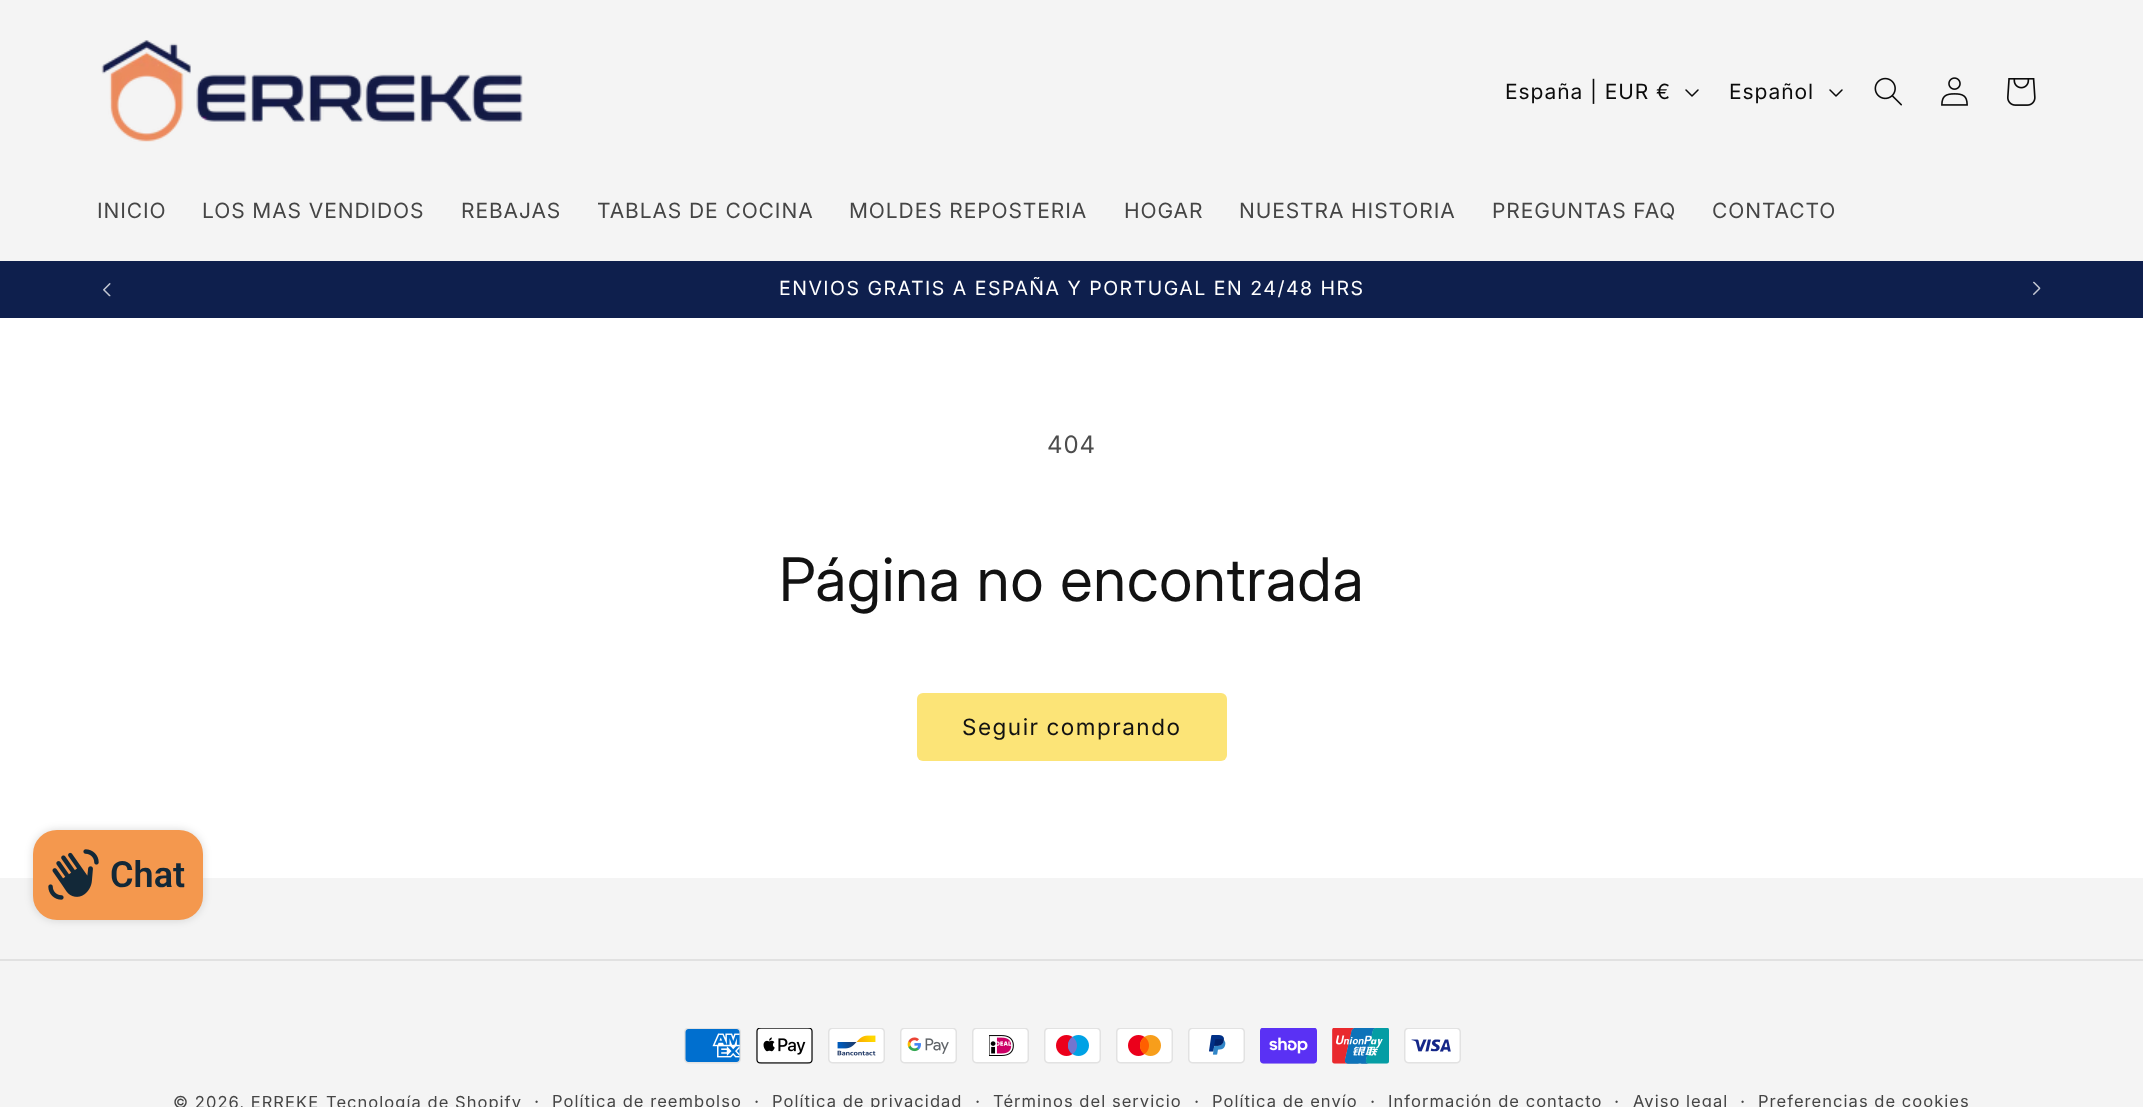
<?xml version="1.0" encoding="UTF-8"?>
<svg xmlns="http://www.w3.org/2000/svg" width="2143" height="1107">
    <defs>
        <filter id="blur1" x="-50%" y="-200%" width="200%" height="500%"><feGaussianBlur stdDeviation="4"/></filter>
    </defs>
    <rect width="100%" height="100%" fill="#FFFFFF"/>
    <rect x="0" y="0" width="2143" height="261" fill="#F4F4F4"/>
    <image x="101" y="40" width="422" height="102" href="img_01.png"/>
    <text x="1505" y="99" font-family="Inter" font-size="21" letter-spacing="0.9" fill="#0B0B0B">España | EUR €</text>
    <image x="1685" y="89" width="14" height="8" href="img_02.png"/>
    <text x="1729" y="99" font-family="Inter" font-size="21" letter-spacing="0.9" fill="#0B0B0B">Español</text>
    <image x="1829" y="89" width="14" height="8" href="img_02.png"/>
    <image x="1874" y="77" width="28" height="29" href="img_03.png"/>
    <image x="1941" y="77" width="27" height="29" href="img_04.png"/>
    <image x="2007" y="78" width="29" height="28" href="img_05.png"/>
    <text x="97" y="218" font-family="Inter" font-size="21" letter-spacing="0.9" fill="#454545">INICIO</text>
    <text x="202" y="218" font-family="Inter" font-size="21" letter-spacing="0.9" fill="#454545">LOS MAS VENDIDOS</text>
    <text x="461" y="218" font-family="Inter" font-size="21" letter-spacing="0.9" fill="#454545">REBAJAS</text>
    <text x="597" y="218" font-family="Inter" font-size="21" letter-spacing="0.9" fill="#454545">TABLAS DE COCINA</text>
    <text x="849" y="218" font-family="Inter" font-size="21" letter-spacing="0.9" fill="#454545">MOLDES REPOSTERIA</text>
    <text x="1124" y="218" font-family="Inter" font-size="21" letter-spacing="0.9" fill="#454545">HOGAR</text>
    <text x="1239" y="218" font-family="Inter" font-size="21" letter-spacing="0.9" fill="#454545">NUESTRA HISTORIA</text>
    <text x="1492" y="218" font-family="Inter" font-size="21" letter-spacing="0.9" fill="#454545">PREGUNTAS FAQ</text>
    <text x="1712" y="218" font-family="Inter" font-size="21" letter-spacing="0.9" fill="#454545">CONTACTO</text>
    <rect x="0" y="261" width="2143" height="57" fill="#0E1F4D"/>
    <image x="103" y="283" width="8" height="14" href="img_06.png"/>
    <text x="779" y="295" font-family="Inter" font-size="19.5" letter-spacing="1.5" fill="#FFFFFF">ENVIOS GRATIS A ESPAÑA Y PORTUGAL EN 24/48 HRS</text>
    <image x="2033" y="281" width="8" height="14" href="img_07.png"/>
    <text x="1047" y="453" font-family="Inter" font-size="24" letter-spacing="0.9" fill="#4D4D4D">404</text>
    <text x="779" y="601" font-family="'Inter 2'" font-size="60" letter-spacing="0.9" fill="#121212">Página no encontrada</text>
    <rect x="917" y="693" width="310" height="68" rx="6" fill="#FCE477"/>
    <text x="962" y="735" word-spacing="-1" font-family="Inter" font-size="22.5" letter-spacing="1.5" fill="#121212">Seguir comprando</text>
    <rect x="0" y="878" width="2143" height="229" fill="#F4F4F4"/>
    <rect x="33" y="830" width="170" height="90" rx="24" fill="#000000" fill-opacity="0.15" filter="url(#blur1)"/>
    <rect x="33" y="830" width="170" height="90" rx="24" fill="#F4984E"/>
    <image x="48" y="849" width="51" height="51" href="img_08.png"/>
    <text x="110" y="887" font-family="Roboto" font-size="36" font-weight="600" fill="#122838">Chat</text>
    <rect x="0" y="959" width="2143" height="2" fill="#E1E1E1"/>
    <image x="684" y="1028" width="57" height="36" href="img_09.png"/>
    <image x="756" y="1028" width="57" height="36" href="img_10.png"/>
    <image x="828" y="1028" width="57" height="36" href="img_11.png"/>
    <image x="900" y="1028" width="57" height="36" href="img_12.png"/>
    <image x="972" y="1028" width="57" height="36" href="img_13.png"/>
    <image x="1044" y="1028" width="57" height="36" href="img_14.png"/>
    <image x="1116" y="1028" width="57" height="36" href="img_15.png"/>
    <image x="1188" y="1028" width="57" height="36" href="img_16.png"/>
    <image x="1260" y="1028" width="57" height="36" href="img_17.png"/>
    <image x="1332" y="1028" width="57" height="36" href="img_18.png"/>
    <image x="1404" y="1028" width="57" height="36" href="img_19.png"/>
    <text x="173" y="1108" font-family="Inter" font-size="16.5" letter-spacing="1.05" fill="#454545">© 2026, ERREKE</text>
    <text x="326" y="1108" font-family="Inter" font-size="16.5" letter-spacing="1.05" fill="#454545">Tecnología de Shopify</text>
    <text x="534" y="1108" font-family="Inter" font-size="18" letter-spacing="1.05" fill="#454545">·</text>
    <text x="552" y="1107" font-family="Inter" font-size="16.5" letter-spacing="1.05" fill="#454545">Política de reembolso</text>
    <text x="754" y="1108" font-family="Inter" font-size="18" letter-spacing="1.05" fill="#454545">·</text>
    <text x="772" y="1107" font-family="Inter" font-size="16.5" letter-spacing="1.05" fill="#454545">Política de privacidad</text>
    <text x="975" y="1108" font-family="Inter" font-size="18" letter-spacing="1.05" fill="#454545">·</text>
    <text x="993" y="1107" font-family="Inter" font-size="16.5" letter-spacing="1.05" fill="#454545">Términos del servicio</text>
    <text x="1194" y="1108" font-family="Inter" font-size="18" letter-spacing="1.05" fill="#454545">·</text>
    <text x="1212" y="1107" font-family="Inter" font-size="16.5" letter-spacing="1.05" fill="#454545">Política de envío</text>
    <text x="1370" y="1108" font-family="Inter" font-size="18" letter-spacing="1.05" fill="#454545">·</text>
    <text x="1388" y="1107" font-family="Inter" font-size="16.5" letter-spacing="1.05" fill="#454545">Información de contacto</text>
    <text x="1614" y="1108" font-family="Inter" font-size="18" letter-spacing="1.05" fill="#454545">·</text>
    <text x="1633" y="1107" font-family="Inter" font-size="16.5" letter-spacing="1.05" fill="#454545">Aviso legal</text>
    <text x="1740" y="1108" font-family="Inter" font-size="18" letter-spacing="1.05" fill="#454545">·</text>
    <text x="1758" y="1107" font-family="Inter" font-size="16.5" letter-spacing="1.05" fill="#454545">Preferencias de cookies</text>
</svg>
